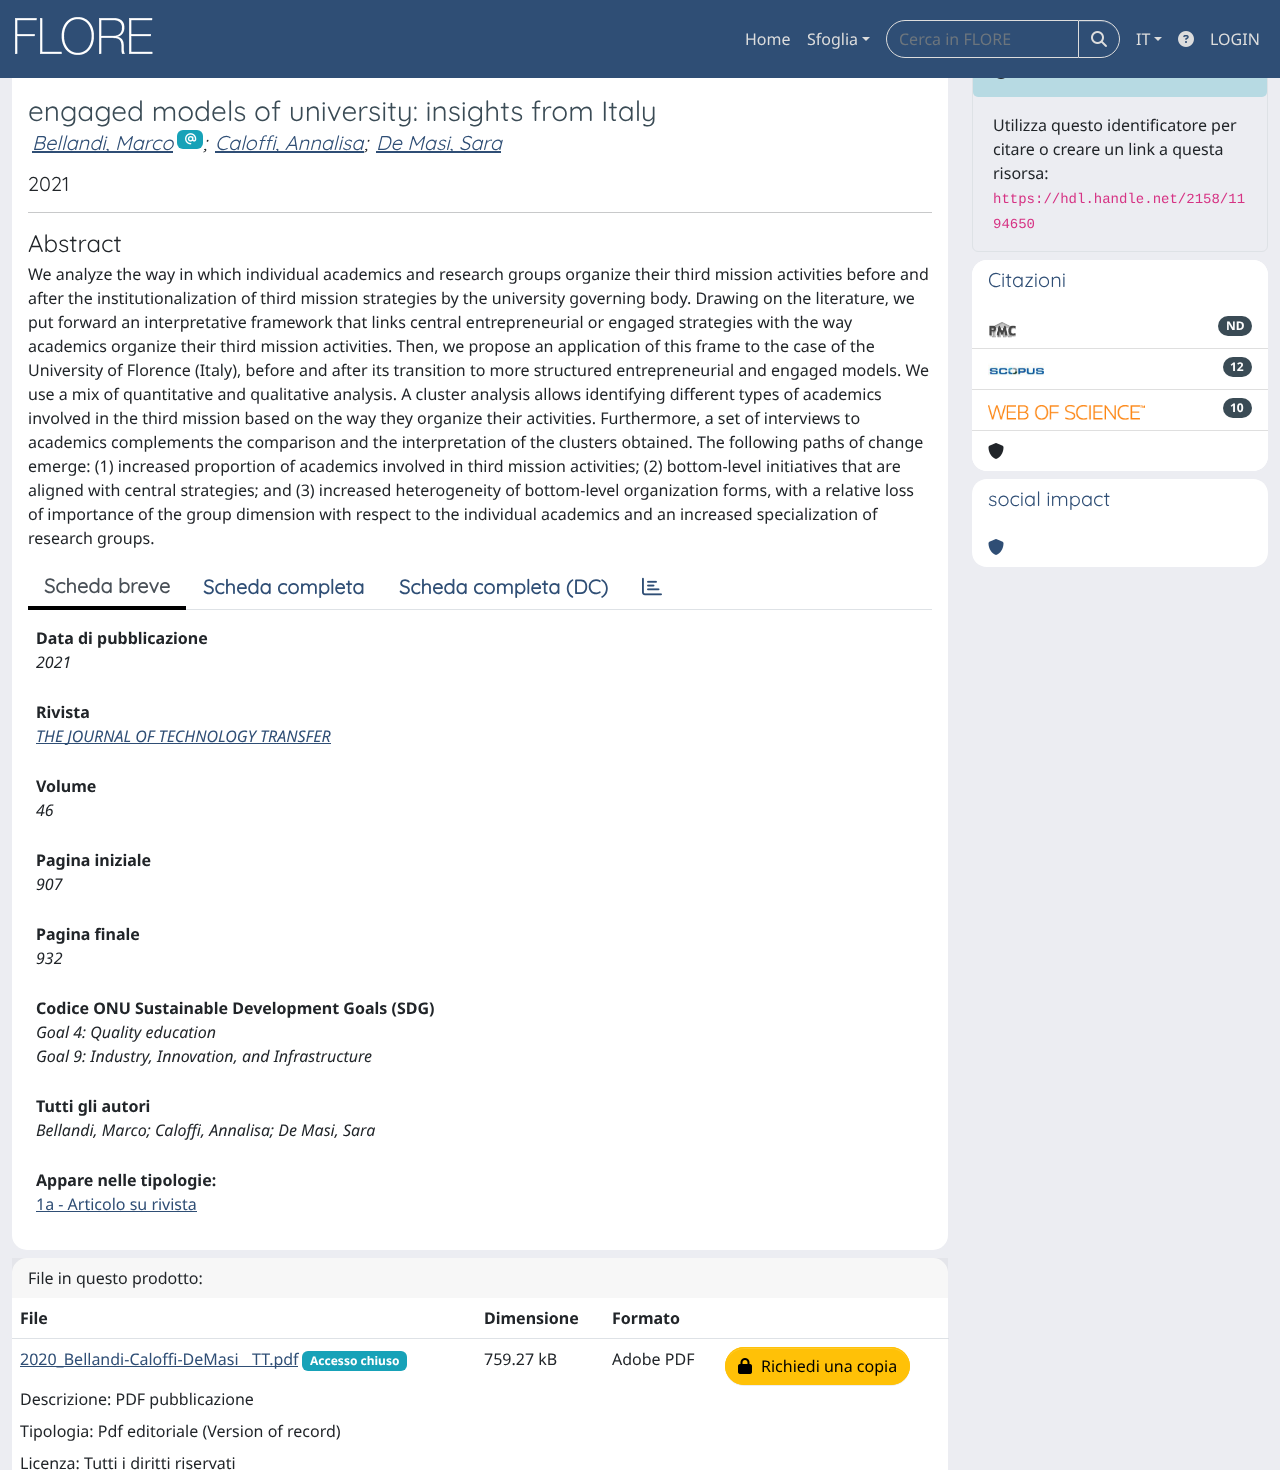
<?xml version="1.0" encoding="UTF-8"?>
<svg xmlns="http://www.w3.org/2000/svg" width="1280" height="1470">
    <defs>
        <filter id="blur1" x="-50%" y="-200%" width="200%" height="500%"><feGaussianBlur stdDeviation="0.5"/></filter>
    </defs>
    <rect width="100%" height="100%" fill="#ECEDF2"/>
    <rect x="12" y="44" width="936" height="1206" rx="15" fill="#FFFFFF"/>
    <rect x="972.5" y="44.5" width="295" height="207" rx="5.5" fill="none" stroke="#DEE2E6"/>
    <rect x="973" y="45" width="294" height="52" rx="5" fill="#17A2B8" fill-opacity="0.25"/>
    <rect x="0" y="0" width="1280" height="78" fill="#2F4E75"/>
    <image x="15" y="17" width="138" height="38" href="img_01.png"/>
    <text x="745" y="45" font-family="Noto Sans" font-size="16" fill="#DDDDDD">Home</text>
    <text x="807" y="45" font-family="Noto Sans" font-size="16" fill="#DDDDDD">Sfoglia</text>
    <path d="M 862 37 H 870 L 866 41 Z" fill="#DDDDDD"/>
    <path d="M 905 20.5 H 1078.5 V 57.5 H 905 C 895 57.5 886.5 49 886.5 39 C 886.5 29 895 20.5 905 20.5 Z" fill="none" stroke="#DDDDDD"/>
    <text x="899" y="45" font-family="Noto Sans" font-size="16" fill="#6C757D">Cerca in FLORE</text>
    <rect x="1078" y="21" width="42" height="38" rx="19" fill="#000000" fill-opacity="0.07" filter="url(#blur1)"/>
    <path d="M 1078 20 H 1101 C 1111.5 20 1120 28.5 1120 39 C 1120 49.5 1111.5 58 1101 58 H 1078 Z" fill="#2F4E75"/>
    <path d="M 1079 22 H 1101 C 1111 22 1119 30 1119 39 C 1119 31 1113 23 1105 21 H 1079 Z" fill="#4E698A"/>
    <path d="M 1078.5 20.5 H 1101 C 1111 20.5 1119.5 29 1119.5 39 C 1119.5 49 1111 57.5 1101 57.5 H 1078.5 Z" fill="none" stroke="#DDDDDD"/>
    <image x="1091" y="31" width="16" height="16" href="img_02.png"/>
    <text x="1136" y="45" font-family="Noto Sans" font-size="16" fill="#DDDDDD">IT</text>
    <path d="M 1154 37 H 1162 L 1158 41 Z" fill="#DDDDDD"/>
    <image x="1178" y="31" width="16" height="16" href="img_03.png"/>
    <text x="1210" y="45" font-family="Noto Sans" font-size="16" fill="#DDDDDD">LOGIN</text>
    <text x="28" y="121" font-family="Quicksand" font-size="28" font-weight="300" fill="#3A4B55">engaged models of university: insights from Italy</text>
    <rect x="32" y="151" width="141" height="2" fill="#2F4E75"/>
    <text x="32" y="150" font-family="Quicksand" font-size="20" font-weight="300" font-style="italic" fill="#2F4E75">Bellandi, Marco</text>
    <rect x="177" y="130" width="26" height="19" rx="6" fill="#17A2B8"/>
    <image x="185" y="133" width="12" height="12" href="img_04.png"/>
    <text x="203" y="150" font-family="Quicksand" font-size="20" font-weight="300" font-style="italic" fill="#212529">;</text>
    <rect x="215" y="151" width="149" height="2" fill="#2F4E75"/>
    <text x="215" y="150" font-family="Quicksand" font-size="20" font-weight="300" font-style="italic" fill="#2F4E75">Caloffi, Annalisa</text>
    <text x="364" y="150" font-family="Quicksand" font-size="20" font-weight="300" font-style="italic" fill="#212529">;</text>
    <rect x="376" y="151" width="125" height="2" fill="#2F4E75"/>
    <text x="376" y="150" font-family="Quicksand" font-size="20" font-weight="300" font-style="italic" fill="#2F4E75">De Masi, Sara</text>
    <text x="28" y="191" font-family="Quicksand" font-size="20" font-weight="300" fill="#212529">2021</text>
    <rect x="28" y="212" width="904" height="1" fill="#C8C9CA"/>
    <text x="28" y="252" font-family="Quicksand" font-size="24" font-weight="300" fill="#212529">Abstract</text>
    <text font-family="Noto Sans" font-size="16" fill="#212529">
        <tspan x="28" y="280">We analyze the way in which individual academics and research groups organize their third mission activities before and</tspan>
        <tspan x="28" y="304">after the institutionalization of third mission strategies by the university governing body. Drawing on the literature, we</tspan>
        <tspan x="28" y="328">put forward an interpretative framework that links central entrepreneurial or engaged strategies with the way</tspan>
        <tspan x="28" y="352">academics organize their third mission activities. Then, we propose an application of this frame to the case of the</tspan>
        <tspan x="28" y="376">University of Florence (Italy), before and after its transition to more structured entrepreneurial and engaged models. We</tspan>
        <tspan x="28" y="400">use a mix of quantitative and qualitative analysis. A cluster analysis allows identifying different types of academics</tspan>
        <tspan x="28" y="424">involved in the third mission based on the way they organize their activities. Furthermore, a set of interviews to</tspan>
        <tspan x="28" y="448">academics complements the comparison and the interpretation of the clusters obtained. The following paths of change</tspan>
        <tspan x="28" y="472">emerge: (1) increased proportion of academics involved in third mission activities; (2) bottom-level initiatives that are</tspan>
        <tspan x="28" y="496">aligned with central strategies; and (3) increased heterogeneity of bottom-level organization forms, with a relative loss</tspan>
        <tspan x="28" y="520">of importance of the group dimension with respect to the individual academics and an increased specialization of</tspan>
        <tspan x="28" y="544">research groups.</tspan>
    </text>
    <rect x="186" y="609" width="746" height="1" fill="#DEE2E6"/>
    <rect x="28" y="606" width="158" height="4" fill="#000000"/>
    <text x="44" y="593" font-family="Quicksand" font-size="20" font-weight="700" fill="#495057">Scheda breve</text>
    <text x="203" y="594" font-family="Quicksand" font-size="20" font-weight="700" fill="#2F4E75">Scheda completa</text>
    <text x="399" y="594" font-family="Quicksand" font-size="20" font-weight="700" fill="#2F4E75">Scheda completa (DC)</text>
    <image x="642" y="577" width="20" height="19" href="img_05.png"/>
    <text x="36" y="644" font-family="Noto Sans" font-size="16" font-weight="700" fill="#212529">Data di pubblicazione</text>
    <text x="36" y="668" font-family="Noto Sans" font-size="16" font-style="italic" fill="#212529">2021</text>
    <text x="36" y="718" font-family="Noto Sans" font-size="16" font-weight="700" fill="#212529">Rivista</text>
    <rect x="36" y="743" width="295" height="1" fill="#2F4E75"/>
    <text x="36" y="742" font-family="Noto Sans" font-size="16" font-style="italic" fill="#2F4E75">THE JOURNAL OF TECHNOLOGY TRANSFER</text>
    <text x="36" y="792" font-family="Noto Sans" font-size="16" font-weight="700" fill="#212529">Volume</text>
    <text x="36" y="816" font-family="Noto Sans" font-size="16" font-style="italic" fill="#212529">46</text>
    <text x="36" y="866" font-family="Noto Sans" font-size="16" font-weight="700" fill="#212529">Pagina iniziale</text>
    <text x="36" y="890" font-family="Noto Sans" font-size="16" font-style="italic" fill="#212529">907</text>
    <text x="36" y="940" font-family="Noto Sans" font-size="16" font-weight="700" fill="#212529">Pagina finale</text>
    <text x="36" y="964" font-family="Noto Sans" font-size="16" font-style="italic" fill="#212529">932</text>
    <text x="36" y="1014" font-family="Noto Sans" font-size="16" font-weight="700" fill="#212529">Codice ONU Sustainable Development Goals (SDG)</text>
    <text font-family="Noto Sans" font-size="16" font-style="italic" fill="#212529">
        <tspan x="36" y="1038">Goal 4: Quality education</tspan>
        <tspan x="36" y="1062">Goal 9: Industry, Innovation, and Infrastructure</tspan>
    </text>
    <text x="36" y="1112" font-family="Noto Sans" font-size="16" font-weight="700" fill="#212529">Tutti gli autori</text>
    <text x="36" y="1136" font-family="Noto Sans" font-size="16" font-style="italic" fill="#212529">Bellandi, Marco; Caloffi, Annalisa; De Masi, Sara</text>
    <text x="36" y="1186" font-family="Noto Sans" font-size="16" font-weight="700" fill="#212529">Appare nelle tipologie:</text>
    <text x="36" y="1210" font-family="Noto Sans" font-size="16" fill="#2F4E75">1a - Articolo su rivista</text>
    <rect x="36" y="1211" width="161" height="1" fill="#2F4E75"/>
    <rect x="12" y="1258" width="936" height="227" rx="15" fill="#FFFFFF"/>
    <rect x="12" y="1258" width="936" height="40" fill="#000000" fill-opacity="0.03"/>
    <text x="28" y="1284" font-family="Noto Sans" font-size="16" fill="#212529">File in questo prodotto:</text>
    <text x="20" y="1324" font-family="Noto Sans" font-size="16" font-weight="700" fill="#212529">File</text>
    <text x="484" y="1324" font-family="Noto Sans" font-size="16" font-weight="700" fill="#212529">Dimensione</text>
    <text x="612" y="1324" font-family="Noto Sans" font-size="16" font-weight="700" fill="#212529">Formato</text>
    <rect x="12" y="1338" width="937" height="1" fill="#DEE2E6"/>
    <rect x="20" y="1366" width="278" height="1" fill="#2F4E75"/>
    <text x="20" y="1365" font-family="Noto Sans" font-size="16" fill="#2F4E75">2020_Bellandi-Caloffi-DeMasi</text>
    <text x="252" y="1365" font-family="Noto Sans" font-size="16" fill="#2F4E75">TT.pdf</text>
    <rect x="302" y="1351" width="105" height="20" rx="6" fill="#17A2B8"/>
    <text x="310" y="1365" font-family="Noto Sans" font-size="12" font-weight="700" fill="#FFFFFF">Accesso chiuso</text>
    <text x="20" y="1405" font-family="Noto Sans" font-size="16" fill="#212529">Descrizione: PDF pubblicazione</text>
    <text x="20" y="1437" font-family="Noto Sans" font-size="16" fill="#212529">Tipologia: Pdf editoriale (Version of record)</text>
    <text x="20" y="1469" font-family="Noto Sans" font-size="16" fill="#212529">Licenza: Tutti i diritti riservati</text>
    <text x="484" y="1365" font-family="Noto Sans" font-size="16" fill="#212529">759.27 kB</text>
    <text x="612" y="1365" font-family="Noto Sans" font-size="16" fill="#212529">Adobe PDF</text>
    <rect x="725" y="1348" width="185" height="38" rx="19" fill="#000000" fill-opacity="0.07" filter="url(#blur1)"/>
    <rect x="725" y="1347" width="185" height="38" rx="19" fill="#FFC107"/>
    <path d="M 744 1349 H 891 C 901 1349 909 1357 909 1366 C 909 1356 901 1348 891 1348 H 744 C 734 1348 726 1356 726 1366 C 726 1357 734 1349 744 1349 Z" fill="#FFCA2C"/>
    <rect x="725.5" y="1347.5" width="184" height="37" rx="18.5" fill="none" stroke="#FFC107"/>
    <image x="738" y="1358" width="14" height="16" href="img_06.png"/>
    <text x="761" y="1372" font-family="Noto Sans" font-size="16" fill="#000000">Richiedi una copia</text>
    <image x="997" y="78" width="8" height="1" href="img_07.png"/>
    <text font-family="Noto Sans" font-size="16" fill="#212529">
        <tspan x="993" y="131">Utilizza questo identificatore per</tspan>
        <tspan x="993" y="155">citare o creare un link a questa</tspan>
        <tspan x="993" y="179">risorsa:</tspan>
    </text>
    <text font-family="Liberation Mono" font-size="14" fill="#D63384">
        <tspan x="993" y="203">https://hdl.handle.net/2158/11</tspan>
        <tspan x="993" y="228">94650</tspan>
    </text>
    <rect x="972" y="260" width="296" height="211" rx="15" fill="#FFFFFF"/>
    <path d="M 987 260 H 1253 C 1261.5 260 1268 266.5 1268 275 V 308 H 972 V 275 C 972 266.5 978.5 260 987 260 Z" fill="#FFFFFF"/>
    <text x="988" y="287" font-family="Quicksand" font-size="20" font-weight="300" fill="#2F4E75">Citazioni</text>
    <rect x="972" y="348" width="296" height="1" fill="#DFDFDF"/>
    <image x="989" y="322" width="27" height="16" href="img_08.png"/>
    <rect x="1218" y="316" width="34" height="20" rx="10" fill="#3A4B55"/>
    <text x="1226" y="330" font-family="Noto Sans" font-size="12" font-weight="700" fill="#FFFFFF">ND</text>
    <rect x="972" y="389" width="296" height="1" fill="#DFDFDF"/>
    <image x="988" y="363" width="56" height="13" href="img_09.png"/>
    <rect x="1223" y="357" width="29" height="20" rx="10" fill="#3A4B55"/>
    <text x="1230" y="371" font-family="Noto Sans" font-size="12" font-weight="700" fill="#FFFFFF">12</text>
    <rect x="972" y="430" width="296" height="1" fill="#DFDFDF"/>
    <image x="988" y="405" width="157" height="15" href="img_10.png"/>
    <rect x="1223" y="398" width="29" height="20" rx="10" fill="#3A4B55"/>
    <text x="1230" y="412" font-family="Noto Sans" font-size="12" font-weight="700" fill="#FFFFFF">10</text>
    <path d="M 972 431 H 1268 V 456 C 1268 464.5 1261.5 471 1253 471 H 987 C 978.5 471 972 464.5 972 456 Z" fill="#FFFFFF"/>
    <image x="988" y="443" width="16" height="16" href="img_11.png"/>
    <path d="M 987 479 H 1253 C 1261.5 479 1268 485.5 1268 494 V 527 H 972 V 494 C 972 485.5 978.5 479 987 479 Z" fill="#FFFFFF"/>
    <text x="988" y="506" font-family="Quicksand" font-size="20" font-weight="300" fill="#2F4E75">social impact</text>
    <path d="M 972 527 H 1268 V 552 C 1268 560.5 1261.5 567 1253 567 H 987 C 978.5 567 972 560.5 972 552 Z" fill="#FFFFFF"/>
    <image x="988" y="539" width="16" height="16" href="img_12.png"/>
</svg>
